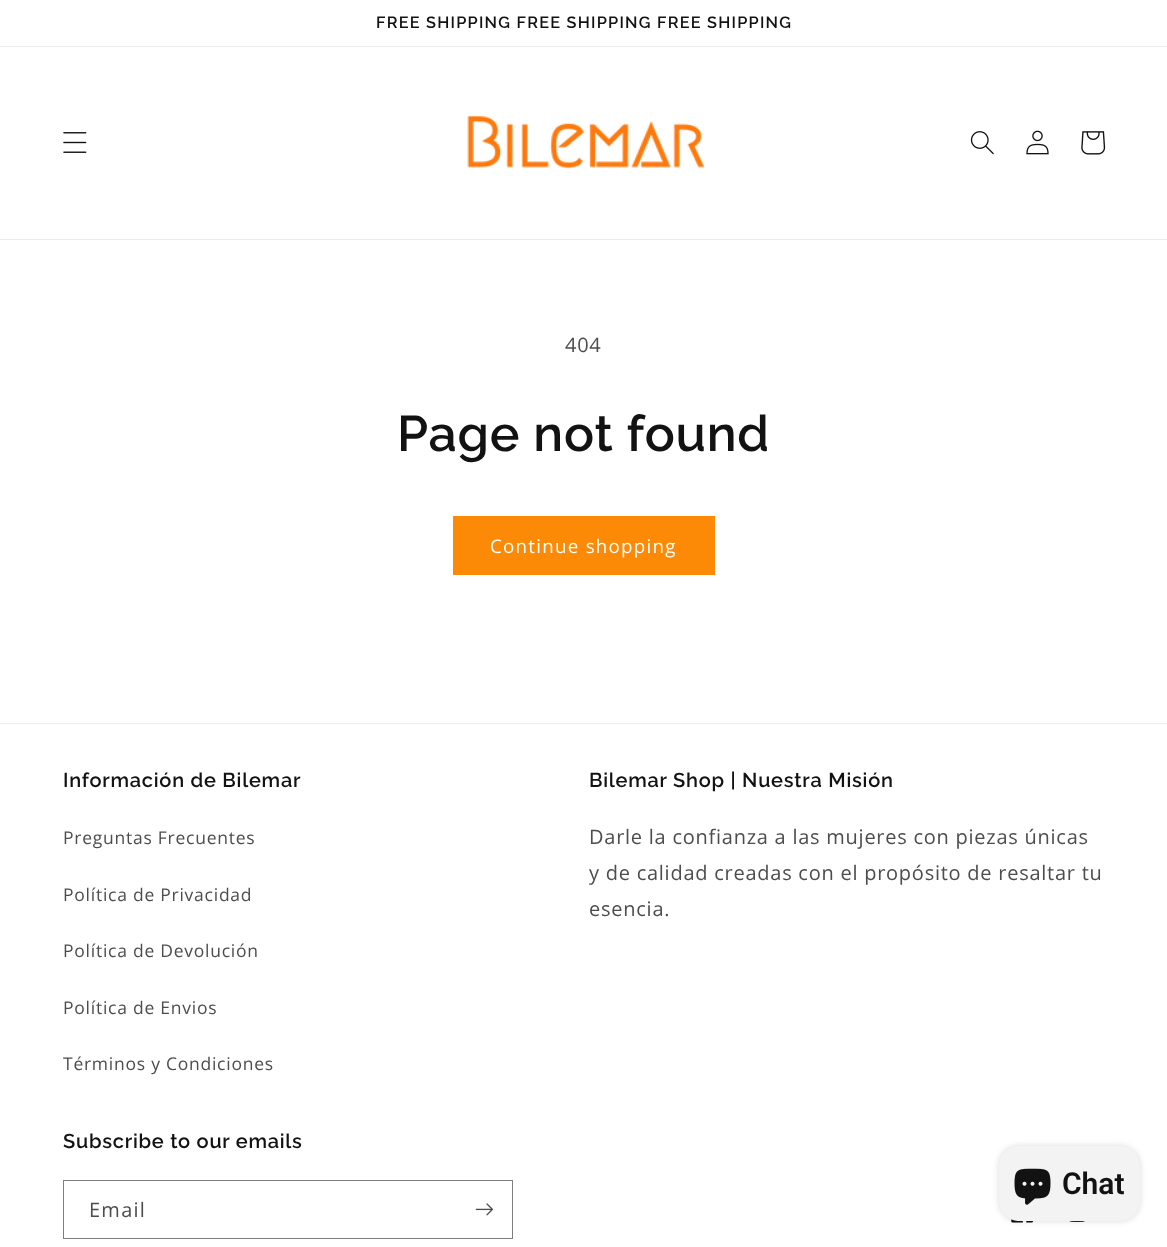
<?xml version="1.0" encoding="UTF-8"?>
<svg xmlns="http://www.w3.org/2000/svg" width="1167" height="1247">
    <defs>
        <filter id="blur1" x="-50%" y="-200%" width="200%" height="500%"><feGaussianBlur stdDeviation="3"/></filter>
    </defs>
    <rect width="100%" height="100%" fill="#FFFFFF"/>
    <rect x="0" y="46" width="1167" height="1" fill="#ECECEC"/>
    <text x="376" y="28" font-family="Raleway" font-size="16.25" font-weight="600" letter-spacing="1.25" fill="#121212">FREE SHIPPING FREE SHIPPING FREE SHIPPING</text>
    <rect x="0" y="239" width="1167" height="1" fill="#ECECEC"/>
    <image x="63" y="132" width="24" height="21" href="img_01.png"/>
    <image x="467" y="115" width="238" height="54" href="img_02.png"/>
    <image x="970" y="131" width="24" height="24" href="img_03.png"/>
    <image x="1026" y="130" width="23" height="25" href="img_04.png"/>
    <image x="1081" y="131" width="25" height="24" href="img_05.png"/>
    <text x="565" y="352" font-family="Open Sans" font-size="20" letter-spacing="0.75" fill="#4D4D4D">404</text>
    <text x="397" y="451" font-family="Raleway" font-size="50" font-weight="600" letter-spacing="0.75" fill="#121212">Page not found</text>
    <rect x="453" y="516" width="262" height="59" fill="#FC8A06"/>
    <text x="490" y="553" font-family="Open Sans" font-size="18.75" letter-spacing="1.25" fill="#FFFFFF">Continue shopping</text>
    <rect x="0" y="723" width="1167" height="1" fill="#ECECEC"/>
    <text x="63" y="787" font-family="Raleway" font-size="20" font-weight="600" letter-spacing="0.75" fill="#121212">Información de Bilemar</text>
    <text x="63" y="844" font-family="Open Sans" font-size="17.5" letter-spacing="0.75" fill="#4D4D4D">Preguntas Frecuentes</text>
    <text x="63" y="901" font-family="Open Sans" font-size="17.5" letter-spacing="0.75" fill="#4D4D4D">Política de Privacidad</text>
    <text x="63" y="957" font-family="Open Sans" font-size="17.5" letter-spacing="0.75" fill="#4D4D4D">Política de Devolución</text>
    <text x="63" y="1014" font-family="Open Sans" font-size="17.5" letter-spacing="0.75" fill="#4D4D4D">Política de Envios</text>
    <text x="63" y="1070" font-family="Open Sans" font-size="17.5" letter-spacing="0.75" fill="#4D4D4D">Términos y Condiciones</text>
    <text x="589" y="787" font-family="Raleway" font-size="20" font-weight="600" letter-spacing="0.75" fill="#121212">Bilemar Shop | Nuestra Misión</text>
    <text font-family="Open Sans" font-size="20" letter-spacing="0.75" fill="#4D4D4D">
        <tspan x="589" y="844">Darle la confianza a las mujeres con piezas únicas</tspan>
        <tspan x="589" y="880">y de calidad creadas con el propósito de resaltar tu</tspan>
        <tspan x="589" y="916">esencia.</tspan>
    </text>
    <text x="63" y="1148" font-family="Raleway" font-size="20" font-weight="600" letter-spacing="0.75" fill="#121212">Subscribe to our emails</text>
    <rect x="63.5" y="1180.5" width="449" height="58" fill="none" stroke="#7D7D7D"/>
    <text x="89" y="1217" font-family="Open Sans" font-size="20" letter-spacing="1.25" fill="#4D4D4D">Email</text>
    <image x="475" y="1203" width="18" height="13" href="img_06.png"/>
    <image x="1011" y="1219" width="22" height="4" href="img_07.png"/>
    <image x="1069" y="1221" width="16" height="1" href="img_08.png"/>
    <rect x="999" y="1146" width="141" height="75" rx="20" fill="#000000" fill-opacity="0.15" filter="url(#blur1)"/>
    <rect x="999" y="1146" width="141" height="75" rx="20" fill="#F3F3F3"/>
    <image x="1014" y="1168" width="37" height="37" href="img_09.png"/>
    <text x="1062" y="1194" font-family="Roboto" font-size="30" font-weight="600" fill="#121212">Chat</text>
</svg>
